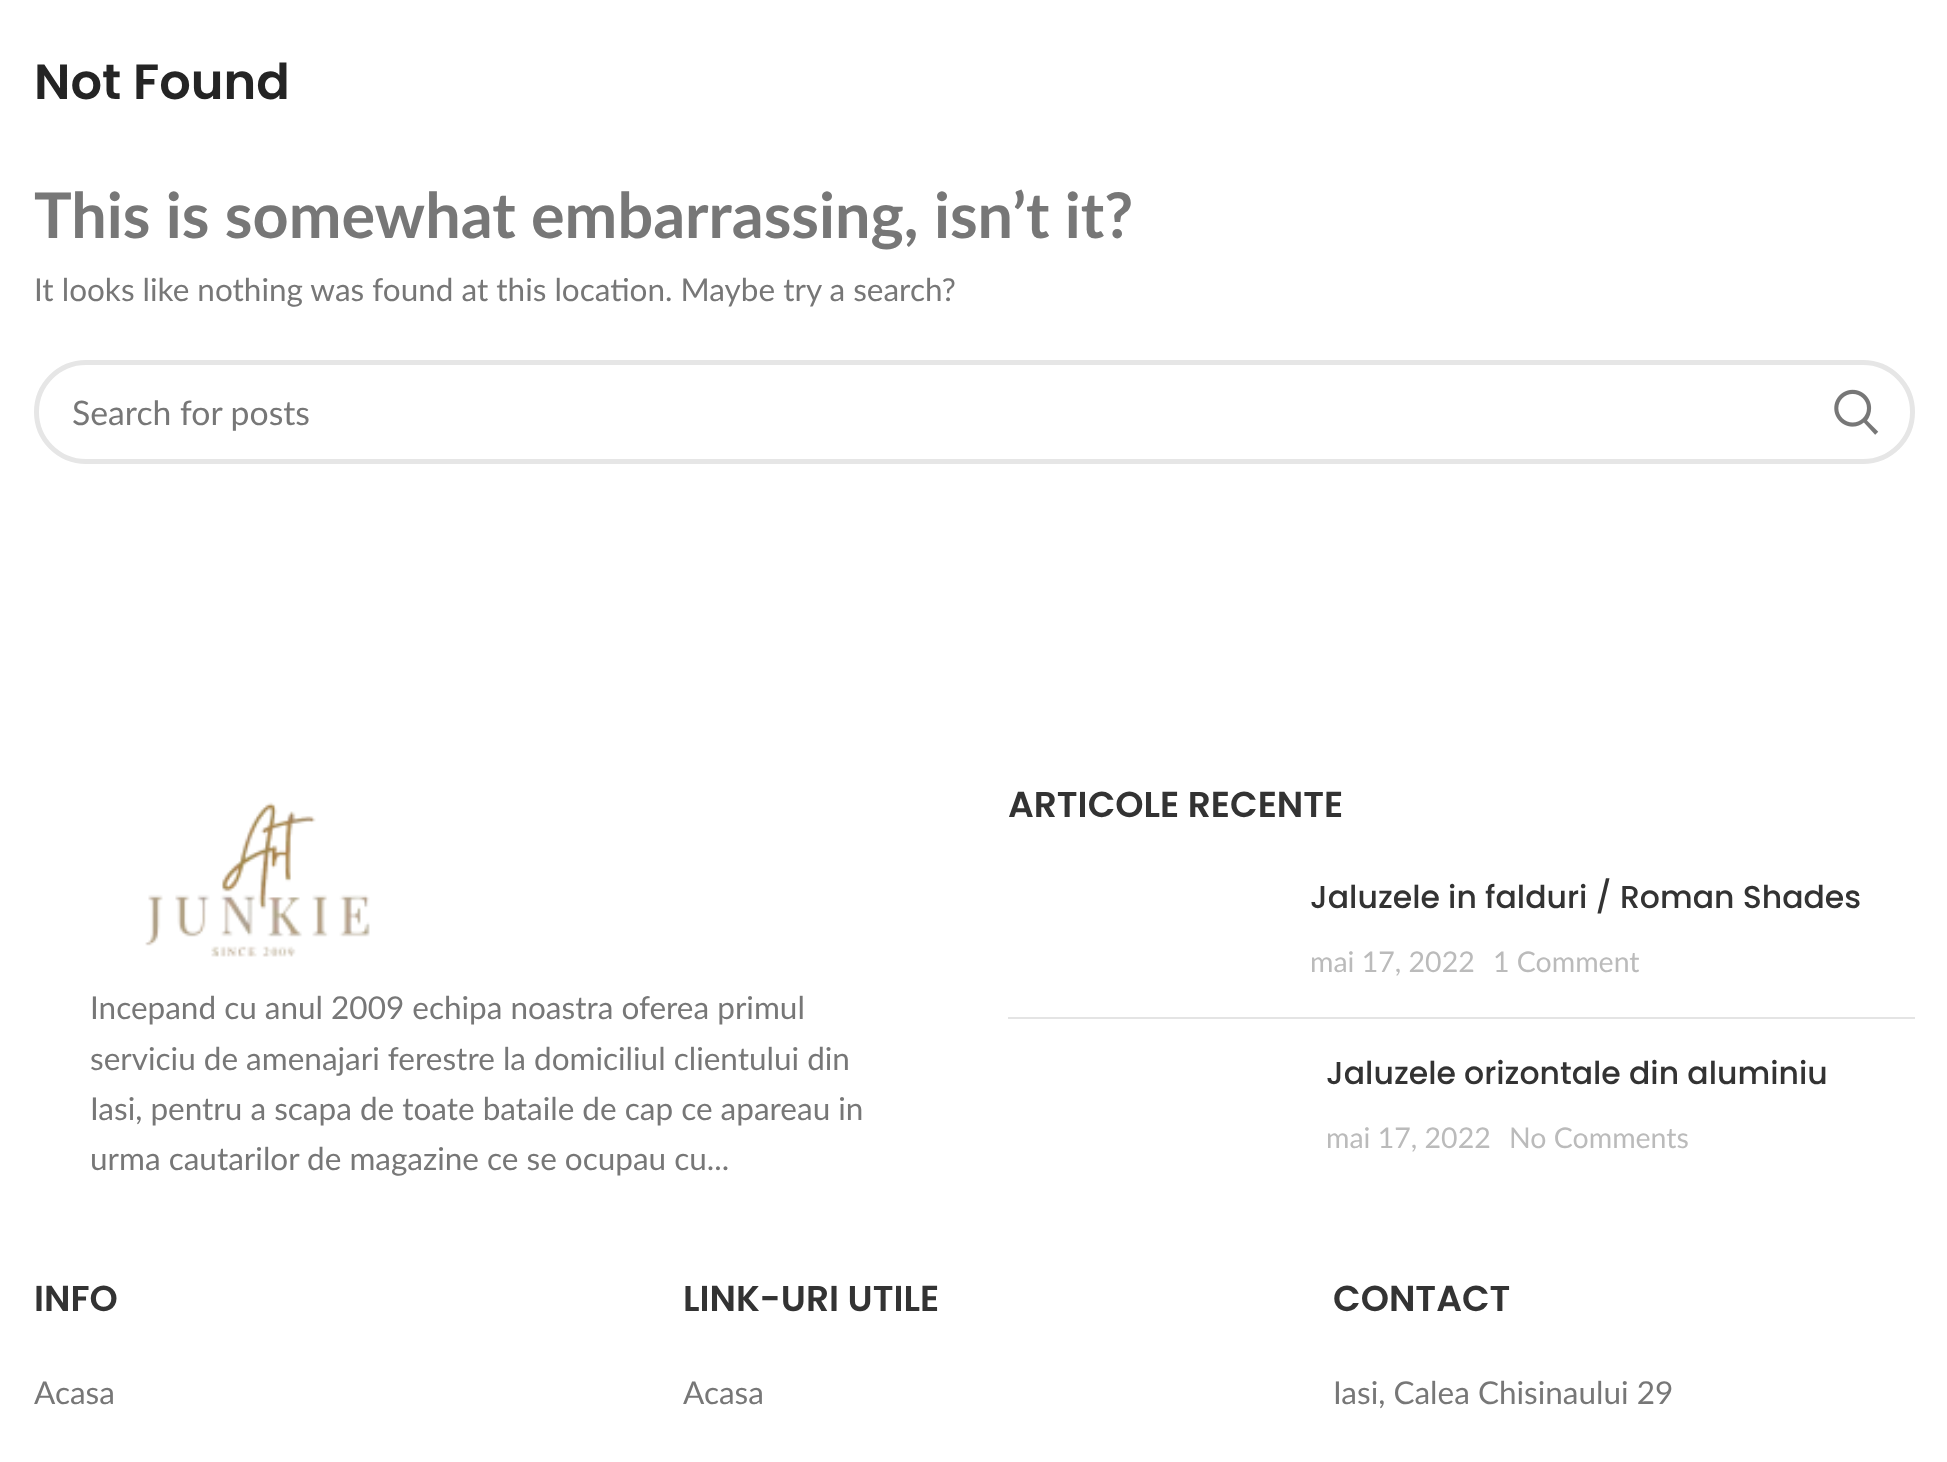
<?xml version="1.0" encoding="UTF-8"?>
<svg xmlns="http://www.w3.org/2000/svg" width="1947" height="1462">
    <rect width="100%" height="100%" fill="#FFFFFF"/>
    <text x="34" y="99" font-family="Poppins" font-size="49.5" font-weight="600" fill="#242424">Not Found</text>
    <text x="34" y="238" font-family="Lato" font-size="63" font-weight="700" fill="#777777">This is somewhat embarrassing, isn’t it?</text>
    <text x="34" y="301" font-family="Lato" font-size="31.5" fill="#777777">It looks like nothing was found at this location. Maybe try a search?</text>
    <rect x="36.5" y="362.5" width="1876" height="99" rx="49.5" fill="none" stroke="#E6E6E6" stroke-width="5"/>
    <text x="72" y="425" font-family="Lato" font-size="33.75" fill="#777777">Search for posts</text>
    <image x="1834" y="389" width="45" height="46" href="img_01.png"/>
    <image x="145" y="802" width="225" height="155" href="img_02.png"/>
    <text font-family="Lato" font-size="31.5" fill="#777777">
        <tspan x="90" y="1019">Incepand cu anul 2009 echipa noastra oferea primul</tspan>
        <tspan x="90" y="1070">serviciu de amenajari ferestre la domiciliul clientului din</tspan>
        <tspan x="90" y="1120">Iasi, pentru a scapa de toate bataile de cap ce apareau in</tspan>
        <tspan x="90" y="1170">urma cautarilor de magazine ce se ocupau cu...</tspan>
    </text>
    <text x="1008" y="817" font-family="Poppins" font-size="36" font-weight="600" fill="#333333">ARTICOLE RECENTE</text>
    <rect x="1008" y="1017" width="907" height="2" fill="#E4E4E4"/>
    <text x="1310" y="908" font-family="Poppins" font-size="31.5" font-weight="500" fill="#333333">Jaluzele in falduri / Roman Shades</text>
    <text x="1310" y="972" font-family="Lato" font-size="28.5" fill="#BBBBBB">mai 17, 2022</text>
    <text x="1493" y="972" font-family="Lato" font-size="28.5" fill="#BBBBBB">1 Comment</text>
    <text x="1326" y="1084" font-family="Poppins" font-size="31.5" font-weight="500" fill="#333333">Jaluzele orizontale din aluminiu</text>
    <text x="1326" y="1148" font-family="Lato" font-size="28.5" fill="#BBBBBB">mai 17, 2022</text>
    <text x="1509" y="1148" font-family="Lato" font-size="28.5" fill="#BBBBBB">No Comments</text>
    <text x="34" y="1311" font-family="Poppins" font-size="36" font-weight="600" fill="#333333">INFO</text>
    <text x="34" y="1404" font-family="Lato" font-size="31.5" fill="#777777">Acasa</text>
    <text x="683" y="1311" font-family="Poppins" font-size="36" font-weight="600" fill="#333333">LINK-URI UTILE</text>
    <text x="683" y="1404" font-family="Lato" font-size="31.5" fill="#777777">Acasa</text>
    <text x="1333" y="1311" font-family="Poppins" font-size="36" font-weight="600" fill="#333333">CONTACT</text>
    <text x="1333" y="1404" font-family="Lato" font-size="31.5" fill="#777777">Iasi, Calea Chisinaului 29</text>
</svg>
